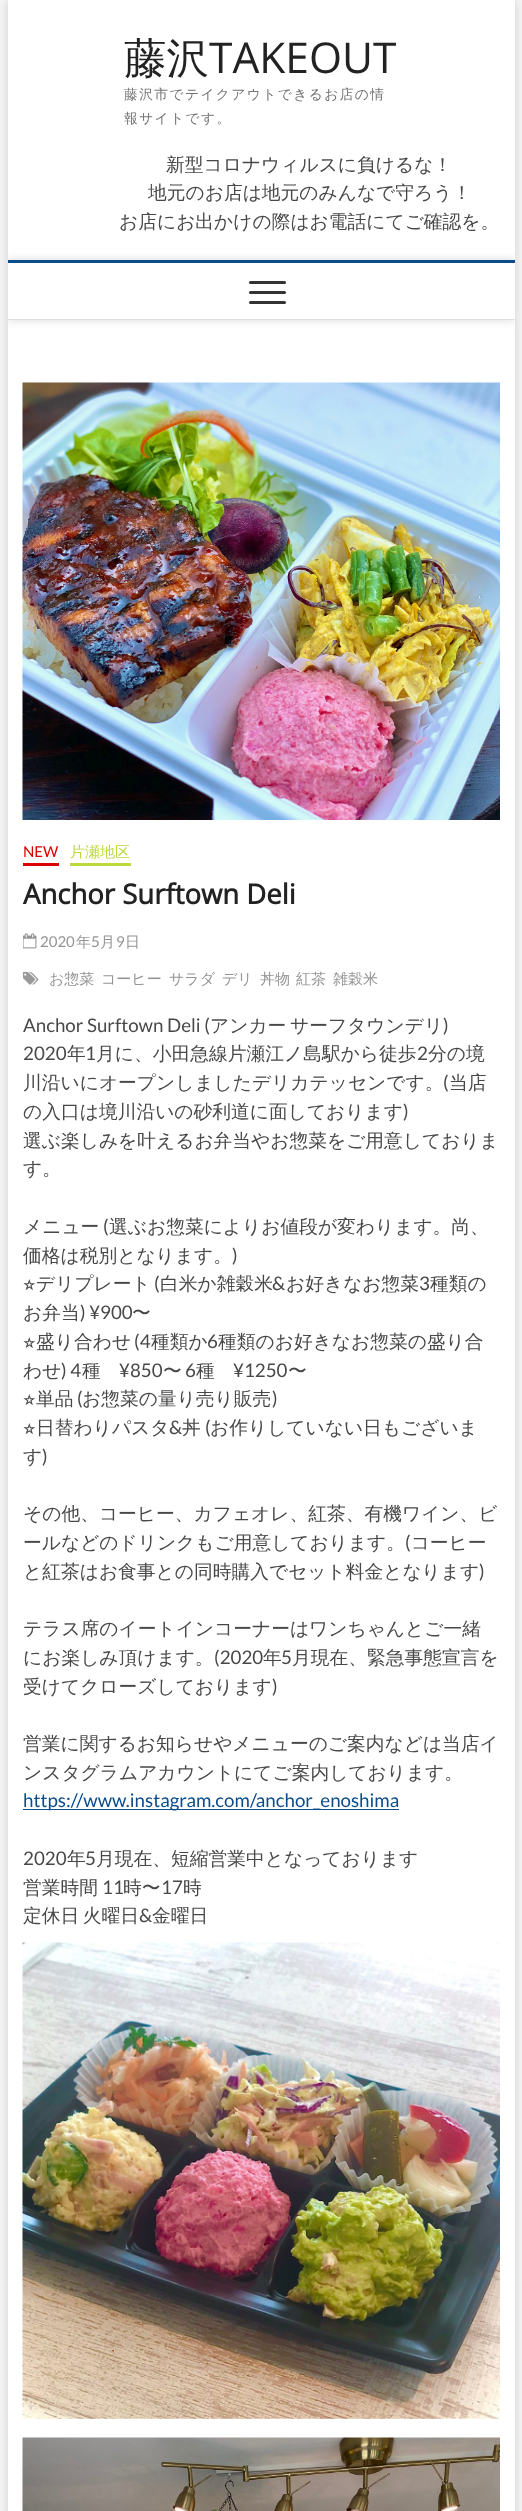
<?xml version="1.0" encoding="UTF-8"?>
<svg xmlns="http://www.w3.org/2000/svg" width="522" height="2511">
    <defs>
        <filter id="blur1" x="-50%" y="-200%" width="200%" height="500%"><feGaussianBlur stdDeviation="4"/></filter>
        <clipPath id="clip1"><rect x="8" y="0" width="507" height="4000"/></clipPath>
        <clipPath id="clip2"><path d="M 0 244 H 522 V 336 H 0 Z M 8 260 H 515 V 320 H 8 Z" clip-rule="evenodd"/></clipPath>
        <filter id="blur2" x="-50%" y="-200%" width="200%" height="500%"><feGaussianBlur stdDeviation="5"/></filter>
    </defs>
    <rect width="100%" height="100%" fill="#F4F4F4"/>
    <rect x="8" y="1" width="507" height="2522" fill="#000000" fill-opacity="0.15" filter="url(#blur1)"/>
    <rect x="8" y="0" width="507" height="2511" fill="#FFFFFF"/>
    <text x="124" y="73" font-family="WenQuanYi Zen Hei" font-size="42.5" font-weight="500" fill="#222222">藤沢</text>
    <text x="209" y="73" font-family="Open Sans" font-size="42.5" fill="#222222">TAKEOUT</text>
    <text font-family="WenQuanYi Zen Hei" font-size="13.75" font-weight="500" letter-spacing="1.4" fill="#747474">
        <tspan x="124" y="99">藤沢市でテイクアウトできるお店の情</tspan>
        <tspan x="124" y="123">報サイトです。</tspan>
    </text>
    <text x="166" y="171" font-family="WenQuanYi Zen Hei" font-size="18.75" font-weight="500" fill="#484848">新型コロナウィルスに負けるな！</text>
    <text x="148" y="199" font-family="WenQuanYi Zen Hei" font-size="18.75" font-weight="500" fill="#484848">地元のお店は地元のみんなで守ろう！</text>
    <text x="119" y="228" font-family="WenQuanYi Zen Hei" font-size="18.75" font-weight="500" fill="#484848">お店にお出かけの際はお電話にてご確認を。</text>
    <g clip-path="url(#clip1)">
        <g clip-path="url(#clip2)">
            <rect x="8" y="260" width="507" height="60" fill="#000000" fill-opacity="0.15" filter="url(#blur2)"/>
        </g>
    </g>
    <rect x="8" y="260" width="507" height="3" fill="#0C4C8A"/>
    <rect x="8" y="319" width="507" height="1" fill="#DDDDDD"/>
    <rect x="249" y="291" width="37" height="3" rx="1.5" fill="#333333"/>
    <rect x="249" y="281" width="37" height="3" rx="1.5" fill="#333333"/>
    <rect x="249" y="301" width="37" height="3" rx="1.5" fill="#333333"/>
    <image x="22" y="382" width="478" height="438" href="img_01.png"/>
    <text x="23" y="857" font-family="Lato" font-size="15" fill="#DD0000">NEW</text>
    <rect x="23" y="863" width="36" height="3" fill="#DD0000"/>
    <text x="70" y="857" font-family="WenQuanYi Zen Hei" font-size="15" font-weight="500" fill="#BBD93A">片瀬地区</text>
    <rect x="70" y="863" width="61" height="3" fill="#BBD93A"/>
    <text x="23" y="904" font-family="Open Sans" font-size="27.5" font-weight="700" fill="#222222">Anchor Surftown Deli</text>
    <image x="23" y="933" width="14" height="16" href="img_02.png"/>
    <text x="40" y="947" font-family="Lato" font-size="15" fill="#949494">2020</text>
    <text x="76" y="947" font-family="WenQuanYi Zen Hei" font-size="15" font-weight="500" fill="#949494">年</text>
    <text x="91" y="947" font-family="Lato" font-size="15" fill="#949494">5</text>
    <text x="100" y="947" font-family="WenQuanYi Zen Hei" font-size="15" font-weight="500" fill="#949494">月</text>
    <text x="116" y="947" font-family="Lato" font-size="15" fill="#949494">9</text>
    <text x="125" y="947" font-family="WenQuanYi Zen Hei" font-size="15" font-weight="500" fill="#949494">日</text>
    <image x="23" y="971" width="16" height="14" href="img_03.png"/>
    <text x="49" y="984" font-family="WenQuanYi Zen Hei" font-size="15" font-weight="500" fill="#949494">お惣菜</text>
    <text x="101" y="984" font-family="WenQuanYi Zen Hei" font-size="15" font-weight="500" fill="#949494">コーヒー</text>
    <text x="169" y="984" font-family="WenQuanYi Zen Hei" font-size="15" font-weight="500" fill="#949494">サラダ</text>
    <text x="222" y="984" font-family="WenQuanYi Zen Hei" font-size="15" font-weight="500" fill="#949494">デリ</text>
    <text x="260" y="984" font-family="WenQuanYi Zen Hei" font-size="15" font-weight="500" fill="#949494">丼物</text>
    <text x="296" y="984" font-family="WenQuanYi Zen Hei" font-size="15" font-weight="500" fill="#949494">紅茶</text>
    <text x="333" y="984" font-family="WenQuanYi Zen Hei" font-size="15" font-weight="500" fill="#949494">雑穀米</text>
    <text x="23" y="1032" font-family="Lato" font-size="18.75" fill="#484848">Anchor Surftown Deli (</text>
    <text x="210" y="1032" font-family="WenQuanYi Zen Hei" font-size="18.75" font-weight="500" fill="#484848">アンカー</text>
    <text x="290" y="1032" font-family="WenQuanYi Zen Hei" font-size="18.75" font-weight="500" fill="#484848">サーフタウンデリ</text>
    <text x="443" y="1032" font-family="Lato" font-size="18.75" fill="#484848">)</text>
    <text x="23" y="1060" font-family="Lato" font-size="18.75" fill="#484848">2020</text>
    <text x="67" y="1060" font-family="WenQuanYi Zen Hei" font-size="18.75" font-weight="500" fill="#484848">年</text>
    <text x="85" y="1060" font-family="Lato" font-size="18.75" fill="#484848">1</text>
    <text x="96" y="1060" font-family="WenQuanYi Zen Hei" font-size="18.75" font-weight="500" fill="#484848">月に、小田急線片瀬江ノ島駅から徒歩</text>
    <text x="417" y="1060" font-family="Lato" font-size="18.75" fill="#484848">2</text>
    <text x="428" y="1060" font-family="WenQuanYi Zen Hei" font-size="18.75" font-weight="500" fill="#484848">分の境</text>
    <text x="23" y="1089" font-family="WenQuanYi Zen Hei" font-size="18.75" font-weight="500" fill="#484848">川沿いにオープンしましたデリカテッセンです。 当店</text>
    <text x="443" y="1089" font-family="Lato" font-size="18.75" fill="#484848">(</text>
    <text x="23" y="1118" font-family="WenQuanYi Zen Hei" font-size="18.75" font-weight="500" fill="#484848">の入口は境川沿いの砂利道に面しております</text>
    <text x="403" y="1118" font-family="Lato" font-size="18.75" fill="#484848">)</text>
    <text font-family="WenQuanYi Zen Hei" font-size="18.75" font-weight="500" fill="#484848">
        <tspan x="23" y="1147">選ぶ楽しみを叶えるお弁当やお惣菜をご用意しておりま</tspan>
        <tspan x="23" y="1175">す。</tspan>
    </text>
    <text x="23" y="1233" font-family="WenQuanYi Zen Hei" font-size="18.75" font-weight="500" fill="#484848">メニュー</text>
    <text x="103" y="1233" font-family="Lato" font-size="18.75" fill="#484848">(</text>
    <text x="109" y="1233" font-family="WenQuanYi Zen Hei" font-size="18.75" font-weight="500" fill="#484848">選ぶお惣菜によりお値段が変わります。尚、</text>
    <text x="23" y="1262" font-family="WenQuanYi Zen Hei" font-size="18.75" font-weight="500" fill="#484848">価格は税別となります。</text>
    <text x="232" y="1262" font-family="Lato" font-size="18.75" fill="#484848">)</text>
    <text x="23" y="1290" font-family="FreeSans" font-size="18.75" fill="#484848">⭐︎</text>
    <text x="36" y="1290" font-family="WenQuanYi Zen Hei" font-size="18.75" font-weight="500" fill="#484848">デリプレート</text>
    <text x="154" y="1290" font-family="Lato" font-size="18.75" fill="#484848">(</text>
    <text x="160" y="1290" font-family="WenQuanYi Zen Hei" font-size="18.75" font-weight="500" fill="#484848">白米か雑穀米</text>
    <text x="272" y="1290" font-family="Lato" font-size="18.75" fill="#484848">&amp;</text>
    <text x="286" y="1290" font-family="WenQuanYi Zen Hei" font-size="18.75" font-weight="500" fill="#484848">お好きなお惣菜</text>
    <text x="419" y="1290" font-family="Lato" font-size="18.75" fill="#484848">3</text>
    <text x="430" y="1290" font-family="WenQuanYi Zen Hei" font-size="18.75" font-weight="500" fill="#484848">種類の</text>
    <text x="23" y="1319" font-family="WenQuanYi Zen Hei" font-size="18.75" font-weight="500" fill="#484848">お弁当</text>
    <text x="80" y="1319" font-family="Lato" font-size="18.75" fill="#484848">) ¥900</text>
    <text x="132" y="1319" font-family="WenQuanYi Zen Hei" font-size="18.75" font-weight="500" fill="#484848">〜</text>
    <text x="23" y="1348" font-family="FreeSans" font-size="18.75" fill="#484848">⭐︎</text>
    <text x="36" y="1348" font-family="WenQuanYi Zen Hei" font-size="18.75" font-weight="500" fill="#484848">盛り合わせ</text>
    <text x="134" y="1348" font-family="Lato" font-size="18.75" fill="#484848">(4</text>
    <text x="151" y="1348" font-family="WenQuanYi Zen Hei" font-size="18.75" font-weight="500" fill="#484848">種類か</text>
    <text x="207" y="1348" font-family="Lato" font-size="18.75" fill="#484848">6</text>
    <text x="218" y="1348" font-family="WenQuanYi Zen Hei" font-size="18.75" font-weight="500" fill="#484848">種類のお好きなお惣菜の盛り合</text>
    <text x="23" y="1377" font-family="WenQuanYi Zen Hei" font-size="18.75" font-weight="500" fill="#484848">わせ</text>
    <text x="61" y="1377" font-family="Lato" font-size="18.75" fill="#484848">) 4</text>
    <text x="82" y="1377" font-family="WenQuanYi Zen Hei" font-size="18.75" font-weight="500" fill="#484848">種</text>
    <text x="119" y="1377" font-family="Lato" font-size="18.75" fill="#484848">¥850</text>
    <text x="163" y="1377" font-family="WenQuanYi Zen Hei" font-size="18.75" font-weight="500" fill="#484848">〜</text>
    <text x="185" y="1377" font-family="Lato" font-size="18.75" fill="#484848">6</text>
    <text x="196" y="1377" font-family="WenQuanYi Zen Hei" font-size="18.75" font-weight="500" fill="#484848">種</text>
    <text x="233" y="1377" font-family="Lato" font-size="18.75" fill="#484848">¥1250</text>
    <text x="288" y="1377" font-family="WenQuanYi Zen Hei" font-size="18.75" font-weight="500" fill="#484848">〜</text>
    <text x="23" y="1405" font-family="FreeSans" font-size="18.75" fill="#484848">⭐︎</text>
    <text x="36" y="1405" font-family="WenQuanYi Zen Hei" font-size="18.75" font-weight="500" fill="#484848">単品</text>
    <text x="77" y="1405" font-family="Lato" font-size="18.75" fill="#484848">(</text>
    <text x="82" y="1405" font-family="WenQuanYi Zen Hei" font-size="18.75" font-weight="500" fill="#484848">お惣菜の量り売り販売</text>
    <text x="272" y="1405" font-family="Lato" font-size="18.75" fill="#484848">)</text>
    <text x="23" y="1434" font-family="FreeSans" font-size="18.75" fill="#484848">⭐︎</text>
    <text x="36" y="1434" font-family="WenQuanYi Zen Hei" font-size="18.75" font-weight="500" fill="#484848">日替わりパスタ</text>
    <text x="169" y="1434" font-family="Lato" font-size="18.75" fill="#484848">&amp;</text>
    <text x="182" y="1434" font-family="WenQuanYi Zen Hei" font-size="18.75" font-weight="500" fill="#484848">丼</text>
    <text x="205" y="1434" font-family="Lato" font-size="18.75" fill="#484848">(</text>
    <text x="210" y="1434" font-family="WenQuanYi Zen Hei" font-size="18.75" font-weight="500" fill="#484848">お作りしていない日もございま</text>
    <text x="23" y="1463" font-family="WenQuanYi Zen Hei" font-size="18.75" font-weight="500" fill="#484848">す</text>
    <text x="42" y="1463" font-family="Lato" font-size="18.75" fill="#484848">)</text>
    <text font-family="WenQuanYi Zen Hei" font-size="18.75" font-weight="500" fill="#484848">
        <tspan x="23" y="1520">その他、コーヒー、カフェオレ、紅茶、有機ワイン、ビ</tspan>
        <tspan x="23" y="1549">ールなどのドリンクもご用意しております。 コーヒー</tspan>
    </text>
    <text x="405" y="1549" font-family="Lato" font-size="18.75" fill="#484848">(</text>
    <text x="23" y="1578" font-family="WenQuanYi Zen Hei" font-size="18.75" font-weight="500" fill="#484848">と紅茶はお食事との同時購入でセット料金となります</text>
    <text x="479" y="1578" font-family="Lato" font-size="18.75" fill="#484848">)</text>
    <text font-family="WenQuanYi Zen Hei" font-size="18.75" font-weight="500" fill="#484848">
        <tspan x="23" y="1635">テラス席のイートインコーナーはワンちゃんとご一緒</tspan>
        <tspan x="23" y="1664">にお楽しみ頂けます。</tspan>
    </text>
    <text x="214" y="1664" font-family="Lato" font-size="18.75" fill="#484848">(2020</text>
    <text x="263" y="1664" font-family="WenQuanYi Zen Hei" font-size="18.75" font-weight="500" fill="#484848">年</text>
    <text x="281" y="1664" font-family="Lato" font-size="18.75" fill="#484848">5</text>
    <text x="292" y="1664" font-family="WenQuanYi Zen Hei" font-size="18.75" font-weight="500" fill="#484848">月現在、緊急事態宣言を</text>
    <text x="23" y="1693" font-family="WenQuanYi Zen Hei" font-size="18.75" font-weight="500" fill="#484848">受けてクローズしております</text>
    <text x="272" y="1693" font-family="Lato" font-size="18.75" fill="#484848">)</text>
    <text font-family="WenQuanYi Zen Hei" font-size="18.75" font-weight="500" fill="#484848">
        <tspan x="23" y="1750">営業に関するお知らせやメニューのご案内などは当店イ</tspan>
        <tspan x="23" y="1779">ンスタグラムアカウントにてご案内しております。</tspan>
    </text>
    <rect x="23" y="1809" width="376" height="1" fill="#0C4C8A"/>
    <text x="23" y="1807" font-family="Lato" font-size="18.75" fill="#0C4C8A">https://www.instagram.com/anchor_enoshima</text>
    <text x="23" y="1865" font-family="Lato" font-size="18.75" fill="#484848">2020</text>
    <text x="67" y="1865" font-family="WenQuanYi Zen Hei" font-size="18.75" font-weight="500" fill="#484848">年</text>
    <text x="85" y="1865" font-family="Lato" font-size="18.75" fill="#484848">5</text>
    <text x="96" y="1865" font-family="WenQuanYi Zen Hei" font-size="18.75" font-weight="500" fill="#484848">月現在、短縮営業中となっております</text>
    <text x="23" y="1894" font-family="WenQuanYi Zen Hei" font-size="18.75" font-weight="500" fill="#484848">営業時間</text>
    <text x="102" y="1894" font-family="Lato" font-size="18.75" fill="#484848">11</text>
    <text x="123" y="1894" font-family="WenQuanYi Zen Hei" font-size="18.75" font-weight="500" fill="#484848">時〜</text>
    <text x="161" y="1894" font-family="Lato" font-size="18.75" fill="#484848">17</text>
    <text x="183" y="1894" font-family="WenQuanYi Zen Hei" font-size="18.75" font-weight="500" fill="#484848">時</text>
    <text x="23" y="1922" word-spacing="-2" font-family="WenQuanYi Zen Hei" font-size="18.75" font-weight="500" fill="#484848">定休日 火曜日</text>
    <text x="139" y="1922" font-family="Lato" font-size="18.75" fill="#484848">&amp;</text>
    <text x="152" y="1922" font-family="WenQuanYi Zen Hei" font-size="18.75" font-weight="500" fill="#484848">金曜日</text>
    <image x="22" y="1942" width="478" height="477" href="img_04.png"/>
    <image x="22" y="2437" width="478" height="74" href="img_05.png"/>
</svg>
